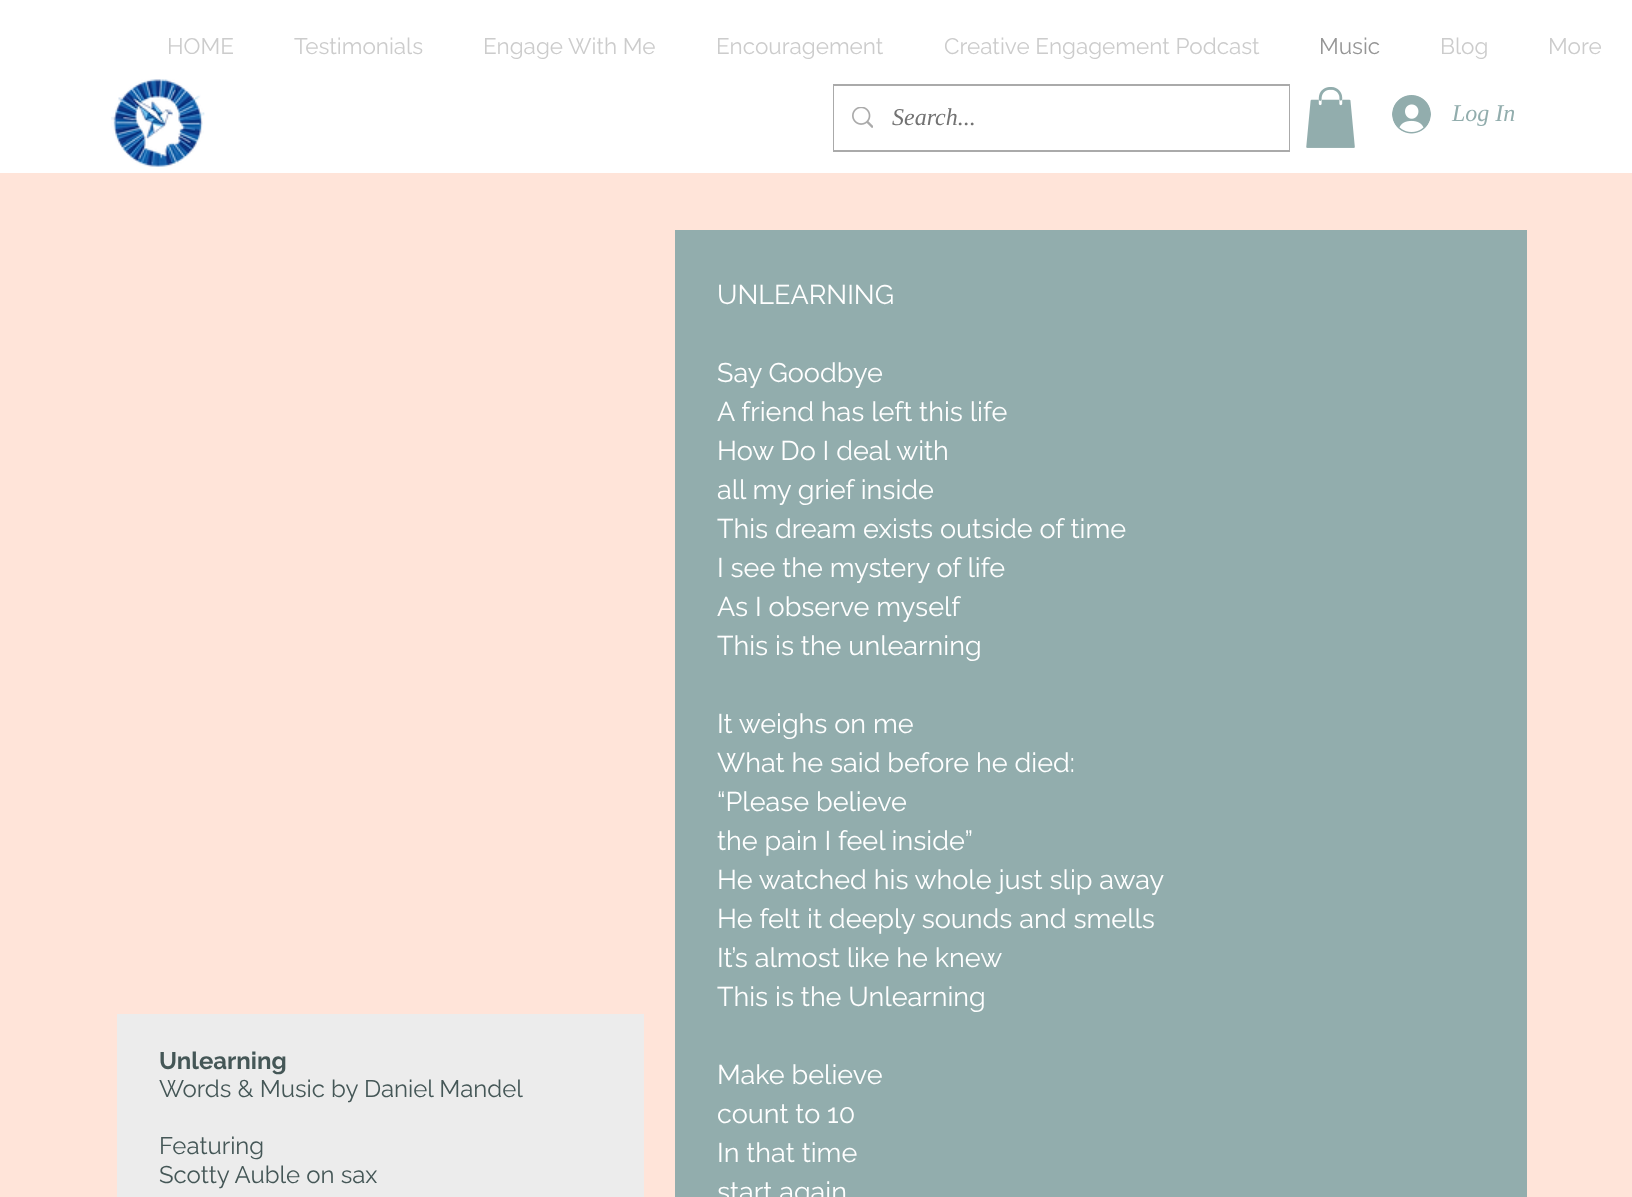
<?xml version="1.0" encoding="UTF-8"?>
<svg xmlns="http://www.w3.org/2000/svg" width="1632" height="1197">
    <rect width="100%" height="100%" fill="#FFE4D9"/>
    <rect x="0" y="0" width="1632" height="173" fill="#FFFFFF"/>
    <text x="167" y="54" font-family="Raleway" font-size="22.5" fill="#CCCCCC">HOME</text>
    <text x="294" y="54" font-family="Raleway" font-size="22.5" fill="#CCCCCC">Testimonials</text>
    <text x="483" y="54" font-family="Raleway" font-size="22.5" fill="#CCCCCC">Engage With Me</text>
    <text x="716" y="54" font-family="Raleway" font-size="22.5" fill="#CCCCCC">Encouragement</text>
    <text x="944" y="54" font-family="Raleway" font-size="22.5" fill="#CCCCCC">Creative Engagement Podcast</text>
    <text x="1319" y="54" font-family="Raleway" font-size="22.5" fill="#969696">Music</text>
    <text x="1440" y="54" font-family="Raleway" font-size="22.5" fill="#CCCCCC">Blog</text>
    <text x="1548" y="54" font-family="Raleway" font-size="22.5" fill="#CCCCCC">More</text>
    <image x="111" y="79" width="94" height="88" href="img_01.png"/>
    <rect x="834" y="85" width="455" height="66" fill="none" stroke="#AAAAAA" stroke-width="2"/>
    <rect x="834" y="86" width="455" height="64" fill="#FFFFFF"/>
    <image x="852" y="107" width="21" height="21" href="img_02.png"/>
    <text x="892" y="125" font-family="Liberation Serif" font-size="24" font-style="italic" fill="#727272">Search...</text>
    <image x="1306" y="87" width="49" height="61" href="img_03.png"/>
    <image x="1392" y="95" width="39" height="39" href="img_04.png"/>
    <text x="1452" y="121" font-family="Liberation Serif" font-size="24" font-style="italic" fill="#92ADAD">Log In</text>
    <rect x="117" y="1014" width="527" height="183" fill="#ECECEC"/>
    <text x="159" y="1069" font-family="Raleway" font-size="24" font-weight="700" fill="#455757">Unlearning</text>
    <text x="159" y="1097" font-family="Raleway" font-size="24" fill="#455757">Words &amp; Music by Daniel Mandel</text>
    <text font-family="Raleway" font-size="24" fill="#455757">
        <tspan x="159" y="1154">Featuring</tspan>
        <tspan x="159" y="1183">Scotty Auble on sax</tspan>
    </text>
    <rect x="675" y="230" width="852" height="967" fill="#92ADAD"/>
    <text x="717" y="304" font-family="Raleway" font-size="27" fill="#FFFFFF">UNLEARNING</text>
    <text font-family="Raleway" font-size="27" fill="#FFFFFF">
        <tspan x="717" y="382">Say Goodbye</tspan>
        <tspan x="717" y="421">A friend has left this life</tspan>
        <tspan x="717" y="460">How Do I deal with</tspan>
        <tspan x="717" y="499">all my grief inside</tspan>
        <tspan x="717" y="538">This dream exists outside of time</tspan>
        <tspan x="717" y="577">I see the mystery of life</tspan>
        <tspan x="717" y="616">As I observe myself</tspan>
        <tspan x="717" y="655">This is the unlearning</tspan>
    </text>
    <text font-family="Raleway" font-size="27" fill="#FFFFFF">
        <tspan x="717" y="733">It weighs on me</tspan>
        <tspan x="717" y="772">What he said before he died:</tspan>
        <tspan x="717" y="811">“Please believe</tspan>
        <tspan x="717" y="850">the pain I feel inside”</tspan>
        <tspan x="717" y="889">He watched his whole just slip away</tspan>
        <tspan x="717" y="928">He felt it deeply sounds and smells</tspan>
        <tspan x="717" y="967">It’s almost like he knew</tspan>
        <tspan x="717" y="1006">This is the Unlearning</tspan>
    </text>
    <text font-family="Raleway" font-size="27" fill="#FFFFFF">
        <tspan x="717" y="1084">Make believe</tspan>
        <tspan x="717" y="1123">count to 10</tspan>
        <tspan x="717" y="1162">In that time</tspan>
        <tspan x="717" y="1201">start again</tspan>
    </text>
</svg>
